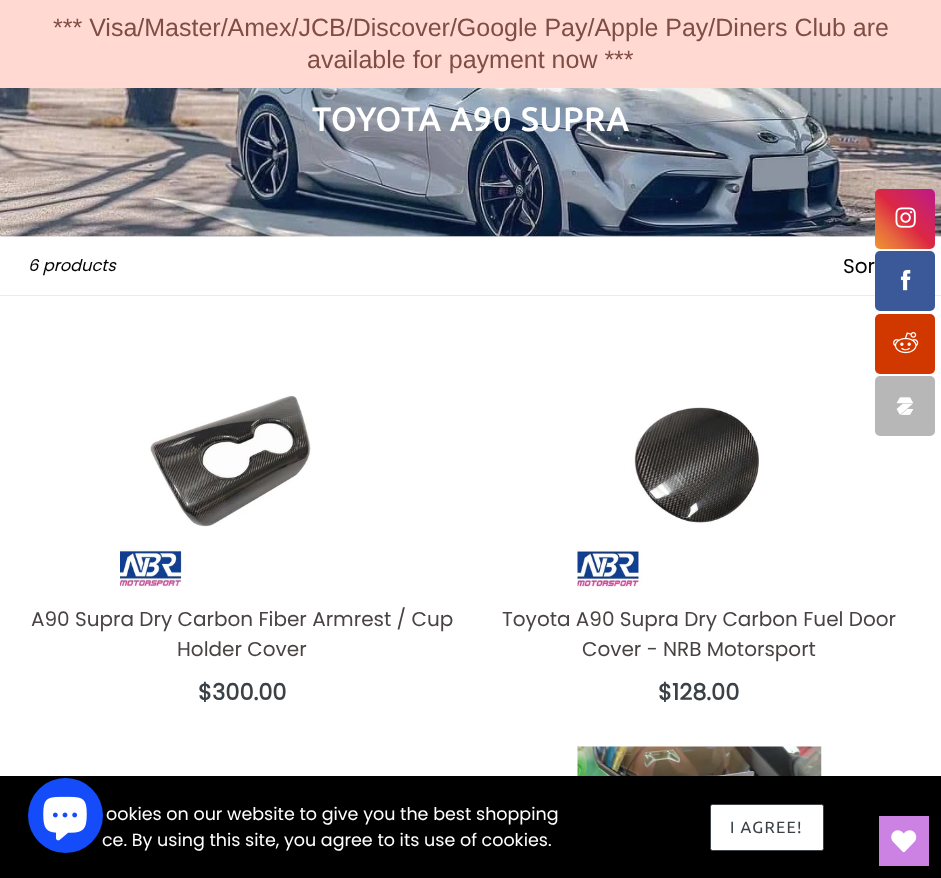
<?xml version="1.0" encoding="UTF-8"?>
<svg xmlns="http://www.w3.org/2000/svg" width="941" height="878">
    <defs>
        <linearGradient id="g1" gradientUnits="userSpaceOnUse" x1="875" y1="249" x2="935" y2="189"><stop offset="0" stop-color="#F09433"/><stop offset="0.25" stop-color="#E6683C"/><stop offset="0.5" stop-color="#DC2743"/><stop offset="0.75" stop-color="#CC2366"/><stop offset="1" stop-color="#BC1888"/></linearGradient>
    </defs>
    <rect width="100%" height="100%" fill="#FFFFFF"/>
    <rect x="0" y="0" width="941" height="88" fill="#FFD9D2"/>
    <text x="53" y="36" font-family="Liberation Sans" font-size="25" fill="#7F4D43">*** Visa/Master/Amex/JCB/Discover/Google Pay/Apple Pay/Diners Club are</text>
    <text x="307" y="68" font-family="Liberation Sans" font-size="25" fill="#7F4D43">available for payment now ***</text>
    <rect x="0" y="236" width="941" height="1" fill="#EBEBEB"/>
    <image x="0" y="88" width="941" height="149" href="img_01.png"/>
    <text x="312" y="131" font-family="Ubuntu" font-size="32.5" font-weight="700" letter-spacing="1.25" fill="#FFFFFF">TOYOTA A90 SUPRA</text>
    <rect x="0" y="295" width="941" height="1" fill="#EBEBEB"/>
    <text x="28" y="271" font-family="Poppins" font-size="16.25" font-style="italic" fill="#000000">6 products</text>
    <text x="843" y="273" font-family="Poppins" font-size="20" fill="#000000">Sor</text>
    <image x="120" y="395" width="192" height="192" href="img_02.png"/>
    <text x="31" y="626" font-family="Poppins" font-size="20" fill="#494343">A90 Supra Dry Carbon Fiber Armrest / Cup</text>
    <text x="177" y="656" font-family="Poppins" font-size="20" fill="#494343">Holder Cover</text>
    <text x="198" y="700" font-family="Poppins" font-size="22.5" font-weight="700" fill="#3A4247">$300.00</text>
    <image x="577" y="407" width="182" height="180" href="img_03.png"/>
    <text x="502" y="626" font-family="Poppins" font-size="20" fill="#494343">Toyota A90 Supra Dry Carbon Fuel Door</text>
    <text x="582" y="656" font-family="Poppins" font-size="20" fill="#494343">Cover - NRB Motorsport</text>
    <text x="658" y="700" font-family="Poppins" font-size="22.5" font-weight="700" fill="#3A4247">$128.00</text>
    <image x="577" y="746" width="245" height="30" href="img_04.png"/>
    <rect x="0" y="776" width="941" height="102" fill="#000000"/>
    <text x="106" y="820" font-family="Poppins" font-size="17.5" fill="#FFFFFF">ookies on our website to give you the best shopping</text>
    <text x="102" y="846" font-family="Poppins" font-size="17.5" fill="#FFFFFF">ce. By using this site, you agree to its use of cookies.</text>
    <rect x="710.5" y="804.5" width="113" height="46" rx="2" fill="#FFFFFF" stroke="#3D4246"/>
    <text x="730" y="833" font-family="Ubuntu" font-size="16.25" letter-spacing="1.25" fill="#3A4247">I AGREE!</text>
    <rect x="875" y="189" width="60" height="60" rx="5" fill="url(#g1)"/>
    <image x="895" y="207" width="21" height="21" href="img_05.png"/>
    <rect x="875" y="251" width="60" height="60" rx="5" fill="#3B5998"/>
    <image x="900" y="269" width="11" height="22" href="img_06.png"/>
    <rect x="875" y="314" width="60" height="60" rx="5" fill="#D03800"/>
    <image x="893" y="332" width="26" height="22" href="img_07.png"/>
    <rect x="875" y="376" width="60" height="60" rx="5" fill="#B7B7B7"/>
    <image x="896" y="397" width="18" height="18" href="img_08.png"/>
    <circle cx="65.5" cy="815.5" r="37.5" fill="#134CF8"/>
    <image x="43" y="796" width="44" height="45" href="img_09.png"/>
    <rect x="879" y="816" width="50" height="50" fill="#CB82E2"/>
    <image x="891" y="830" width="26" height="23" href="img_10.png"/>
</svg>
